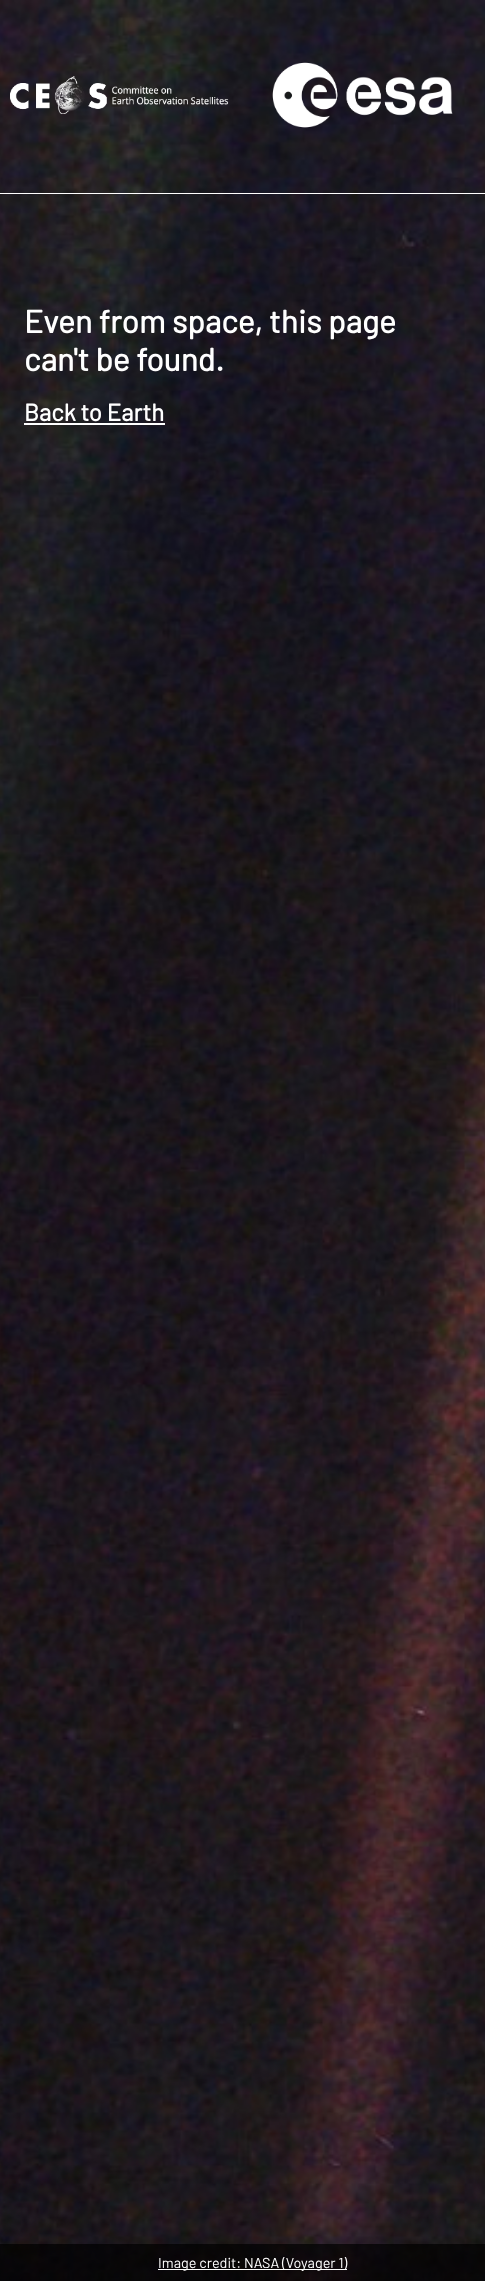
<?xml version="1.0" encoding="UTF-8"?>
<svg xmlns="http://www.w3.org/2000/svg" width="485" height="2281">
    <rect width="100%" height="100%" fill="#FFFFFF"/>
    <image x="0" y="0" width="485" height="2281" href="img_01.png"/>
    <rect x="0" y="193" width="485" height="1" fill="#FFFFFF"/>
    <image x="10" y="76" width="219" height="38" href="img_02.png"/>
    <image x="272" y="62" width="181" height="66" href="img_03.png"/>
    <text font-family="Barlow" font-size="32" font-weight="700" fill="#FFFFFF">
        <tspan x="24" y="333">Even from space, this page</tspan>
        <tspan x="24" y="371">can't be found.</tspan>
    </text>
    <text x="24" y="421" font-family="Barlow" font-size="24" font-weight="700" fill="#FFFFFF">Back to Earth</text>
    <rect x="24" y="423" width="141" height="2" fill="#FFFFFF"/>
    <rect x="0" y="2244" width="485" height="37" fill="#000000" fill-opacity="0.7"/>
    <rect x="158" y="2269" width="189" height="1" fill="#FFFFFF"/>
    <text x="158" y="2268" font-family="Barlow" font-size="14.4" fill="#FFFFFF">Image credit: NASA (Voyager 1)</text>
</svg>
